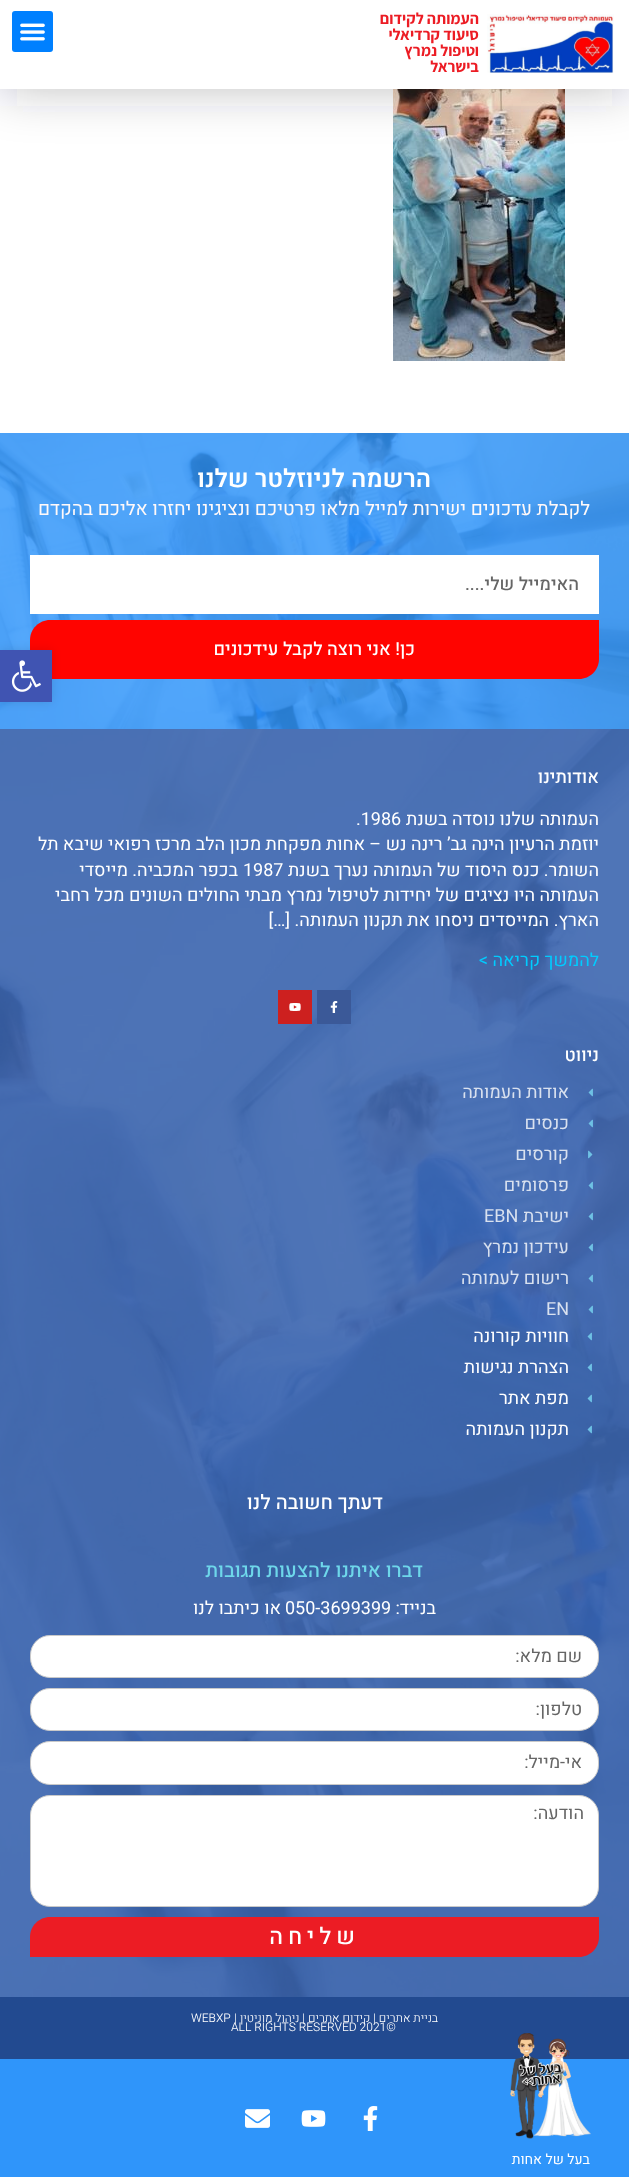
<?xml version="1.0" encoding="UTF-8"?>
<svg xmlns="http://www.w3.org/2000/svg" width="629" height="2177">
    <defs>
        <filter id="blur1" x="-50%" y="-200%" width="200%" height="500%"><feGaussianBlur stdDeviation="25"/></filter>
        <filter id="blur2" x="-50%" y="-200%" width="200%" height="500%"><feGaussianBlur stdDeviation="5"/></filter>
    </defs>
    <rect width="100%" height="100%" fill="#FFFFFF"/>
    <image x="393" y="89" width="172" height="272" href="img_03.png"/>
    <rect x="0" y="0" width="629" height="89" fill="#2A2F3B" fill-opacity="0.3" filter="url(#blur1)"/>
    <rect x="0" y="0" width="629" height="89" fill="#FFFFFF"/>
    <image x="487" y="14" width="127" height="59" href="img_01.png"/>
    <text font-family="Assistant" font-size="16" font-weight="700" direction="rtl" fill="#EC1C24">
        <tspan x="479" y="24">העמותה לקידום</tspan>
        <tspan x="479" y="40">סיעוד קרדיאלי</tspan>
        <tspan x="479" y="56">וטיפול נמרץ</tspan>
        <tspan x="479" y="72">בישראל</tspan>
    </text>
    <rect x="12" y="11" width="41" height="41" rx="3" fill="#0080FF"/>
    <image x="20" y="23" width="25" height="18" href="img_02.png"/>
    <rect x="0" y="433" width="629" height="296" fill="#2F95FA"/>
    <image x="0" y="433" width="629" height="296" href="img_04.png"/>
    <text x="431" y="487" font-family="Heebo" font-size="25" font-weight="600" direction="rtl" fill="#FFFFFF">הרשמה לניוזלטר שלנו</text>
    <text x="590" y="515" font-family="Heebo" font-size="19" direction="rtl" fill="#FFF9F9">לקבלת עדכונים ישירות למייל מלאו פרטיכם ונציגינו יחזרו אליכם בהקדם</text>
    <rect x="30" y="555" width="569" height="59" fill="#FFFFFF"/>
    <text x="579" y="590" font-family="Heebo" font-size="18" font-weight="500" direction="rtl" fill="#666666">האימייל שלי....</text>
    <path d="M 50 620 H 599 V 659 C 599 670 590 679 579 679 H 30 V 640 C 30 629 39 620 50 620 Z" fill="#FF0400"/>
    <text x="415" y="655" font-family="Heebo" font-size="18" font-weight="500" direction="rtl" fill="#FFFFFF">כן! אני רוצה לקבל עידכונים</text>
    <image x="0" y="729" width="629" height="1268" href="img_05.png"/>
    <text x="599" y="783" font-family="Heebo" font-size="18" font-weight="500" direction="rtl" fill="#FFFFFF">אודותינו</text>
    <text x="599" y="825" font-family="Heebo" font-size="18" direction="rtl" fill="#FFFFFF">העמותה שלנו נוסדה בשנת</text>
    <text x="356" y="825" font-family="Heebo" font-size="18" fill="#FFFFFF">.1986</text>
    <text font-family="Heebo" font-size="18" direction="rtl" fill="#FFFFFF">
        <tspan x="599" y="850">יוזמת הרעיון הינה גב’ רינה נש – אחות מפקחת מכון הלב מרכז רפואי שיבא תל</tspan>
        <tspan x="599" y="876">השומר. כנס היסוד של העמותה נערך בשנת</tspan>
    </text>
    <text x="243" y="876" font-family="Heebo" font-size="18" fill="#FFFFFF">1987</text>
    <text x="238" y="876" font-family="Heebo" font-size="18" direction="rtl" fill="#FFFFFF">בכפר המכביה. מייסדי</text>
    <text font-family="Heebo" font-size="18" direction="rtl" fill="#FFFFFF">
        <tspan x="599" y="901">העמותה היו נציגים של יחידות לטיפול נמרץ מבתי החולים השונים מכל רחבי</tspan>
        <tspan x="599" y="926">הארץ. המייסדים ניסחו את תקנון העמותה. […]</tspan>
    </text>
    <text x="599" y="966" font-family="Heebo" font-size="18" direction="rtl" fill="#00CCFF">להמשך קריאה &gt;</text>
    <rect x="317" y="990" width="34" height="34" fill="#3B5998"/>
    <image x="330" y="1001" width="8" height="12" href="img_06.png"/>
    <rect x="278" y="990" width="34" height="34" fill="#CD201F"/>
    <image x="289" y="1003" width="12" height="8" href="img_07.png"/>
    <text x="599" y="1061" font-family="Heebo" font-size="18" font-weight="500" direction="rtl" fill="#FFFFFF">ניווט</text>
    <image x="588" y="1088" width="5" height="9" href="img_08.png"/>
    <text x="569" y="1098" font-family="Heebo" font-size="18" direction="rtl" fill="#D9E1EF">אודות העמותה</text>
    <image x="588" y="1119" width="5" height="9" href="img_09.png"/>
    <text x="569" y="1129" font-family="Heebo" font-size="18" direction="rtl" fill="#D9E1EF">כנסים</text>
    <image x="588" y="1150" width="5" height="9" href="img_10.png"/>
    <text x="569" y="1160" font-family="Heebo" font-size="18" direction="rtl" fill="#D9E1EF">קורסים</text>
    <image x="588" y="1181" width="5" height="9" href="img_11.png"/>
    <text x="569" y="1191" font-family="Heebo" font-size="18" direction="rtl" fill="#D9E1EF">פרסומים</text>
    <image x="588" y="1212" width="5" height="9" href="img_12.png"/>
    <text x="569" y="1222" font-family="Heebo" font-size="18" direction="rtl" fill="#D9E1EF">ישיבת</text>
    <text x="484" y="1222" font-family="Heebo" font-size="18" fill="#D9E1EF">EBN</text>
    <image x="588" y="1243" width="5" height="9" href="img_13.png"/>
    <text x="569" y="1253" font-family="Heebo" font-size="18" direction="rtl" fill="#D9E1EF">עידכון נמרץ</text>
    <image x="588" y="1274" width="5" height="9" href="img_14.png"/>
    <text x="569" y="1284" font-family="Heebo" font-size="18" direction="rtl" fill="#D9E1EF">רישום לעמותה</text>
    <image x="588" y="1305" width="5" height="9" href="img_15.png"/>
    <text x="546" y="1315" font-family="Heebo" font-size="18" fill="#D9E1EF">EN</text>
    <image x="587" y="1332" width="5" height="9" href="img_16.png"/>
    <text x="569" y="1342" font-family="Heebo" font-size="18" direction="rtl" fill="#FFFFFF">חוויות קורונה</text>
    <image x="587" y="1363" width="5" height="9" href="img_17.png"/>
    <text x="569" y="1373" font-family="Heebo" font-size="18" direction="rtl" fill="#FFFFFF">הצהרת נגישות</text>
    <image x="587" y="1394" width="5" height="9" href="img_18.png"/>
    <text x="569" y="1404" font-family="Heebo" font-size="18" direction="rtl" fill="#FFFFFF">מפת אתר</text>
    <image x="587" y="1425" width="5" height="9" href="img_19.png"/>
    <text x="569" y="1435" font-family="Heebo" font-size="18" direction="rtl" fill="#FFFFFF">תקנון העמותה</text>
    <text x="383" y="1509" font-family="Heebo" font-size="20" font-weight="500" direction="rtl" fill="#FFFFFF">דעתך חשובה לנו</text>
    <text x="423" y="1577" font-family="Heebo" font-size="20" font-weight="500" direction="rtl" fill="#6ED7EA">דברו איתנו להצעות תגובות</text>
    <text x="436" y="1614" font-family="Heebo" font-size="18" direction="rtl" fill="#FFFFFF">בנייד:</text>
    <text x="285" y="1614" font-family="Heebo" font-size="18" fill="#FFFFFF">050-3699399</text>
    <text x="281" y="1614" font-family="Heebo" font-size="18" direction="rtl" fill="#FFFFFF">או כיתבו לנו</text>
    <rect x="30.5" y="1635.5" width="568" height="42" rx="19.5" fill="#FFFFFF" stroke="#C9C9C9"/>
    <text x="582" y="1662" font-family="Heebo" font-size="18" direction="rtl" fill="#666666">שם מלא:</text>
    <rect x="30.5" y="1688.5" width="568" height="42" rx="19.5" fill="#FFFFFF" stroke="#C9C9C9"/>
    <text x="582" y="1715" font-family="Heebo" font-size="18" direction="rtl" fill="#666666">טלפון:</text>
    <rect x="30.5" y="1741.5" width="568" height="43" rx="19.5" fill="#FFFFFF" stroke="#C9C9C9"/>
    <text x="582" y="1768" font-family="Heebo" font-size="18" direction="rtl" fill="#666666">אי-מייל:</text>
    <rect x="30.5" y="1795.5" width="568" height="111" rx="19.5" fill="#FFFFFF" stroke="#C9C9C9"/>
    <text x="584" y="1819" font-family="Heebo" font-size="18" direction="rtl" fill="#666666">הודעה:</text>
    <path d="M 50 1917 H 599 V 1937 C 599 1948 590 1957 579 1957 H 30 V 1937 C 30 1926 39 1917 50 1917 Z" fill="#EC1C24"/>
    <text x="360" y="1944" font-family="Heebo" font-size="23" font-weight="500" letter-spacing="5" direction="rtl" fill="#FFFFFF">שליחה</text>
    <rect x="0" y="1997" width="629" height="62" fill="#224A90"/>
    <text x="438" y="2022" font-family="Heebo" font-size="12" font-weight="300" direction="rtl" fill="#FFFFFF">בניית אתרים | קידום אתרים | ניהול מוניטין |</text>
    <text x="191" y="2022" font-family="Heebo" font-size="12" font-weight="300" fill="#FFFFFF">WEBXP</text>
    <text x="231" y="2031" font-family="Heebo" font-size="12" font-weight="300" fill="#FFFFFF">ALL RIGHTS RESERVED 2021©</text>
    <rect x="0" y="2059" width="629" height="118" fill="#2F95FA"/>
    <image x="363" y="2106" width="15" height="25" href="img_20.png"/>
    <image x="301" y="2110" width="25" height="17" href="img_21.png"/>
    <image x="245" y="2109" width="25" height="19" href="img_22.png"/>
    <image x="510" y="2033" width="81" height="106" href="img_23.png"/>
    <text x="590" y="2164" font-family="Heebo" font-size="14" direction="rtl" fill="#FFFFFF">בעל של אחות</text>
    <rect x="0" y="650" width="52" height="52" fill="#000000" fill-opacity="0.1" filter="url(#blur2)"/>
    <rect x="0" y="650" width="52" height="52" fill="#4054B2"/>
    <image x="11" y="660" width="30" height="32" href="img_24.png"/>
</svg>
